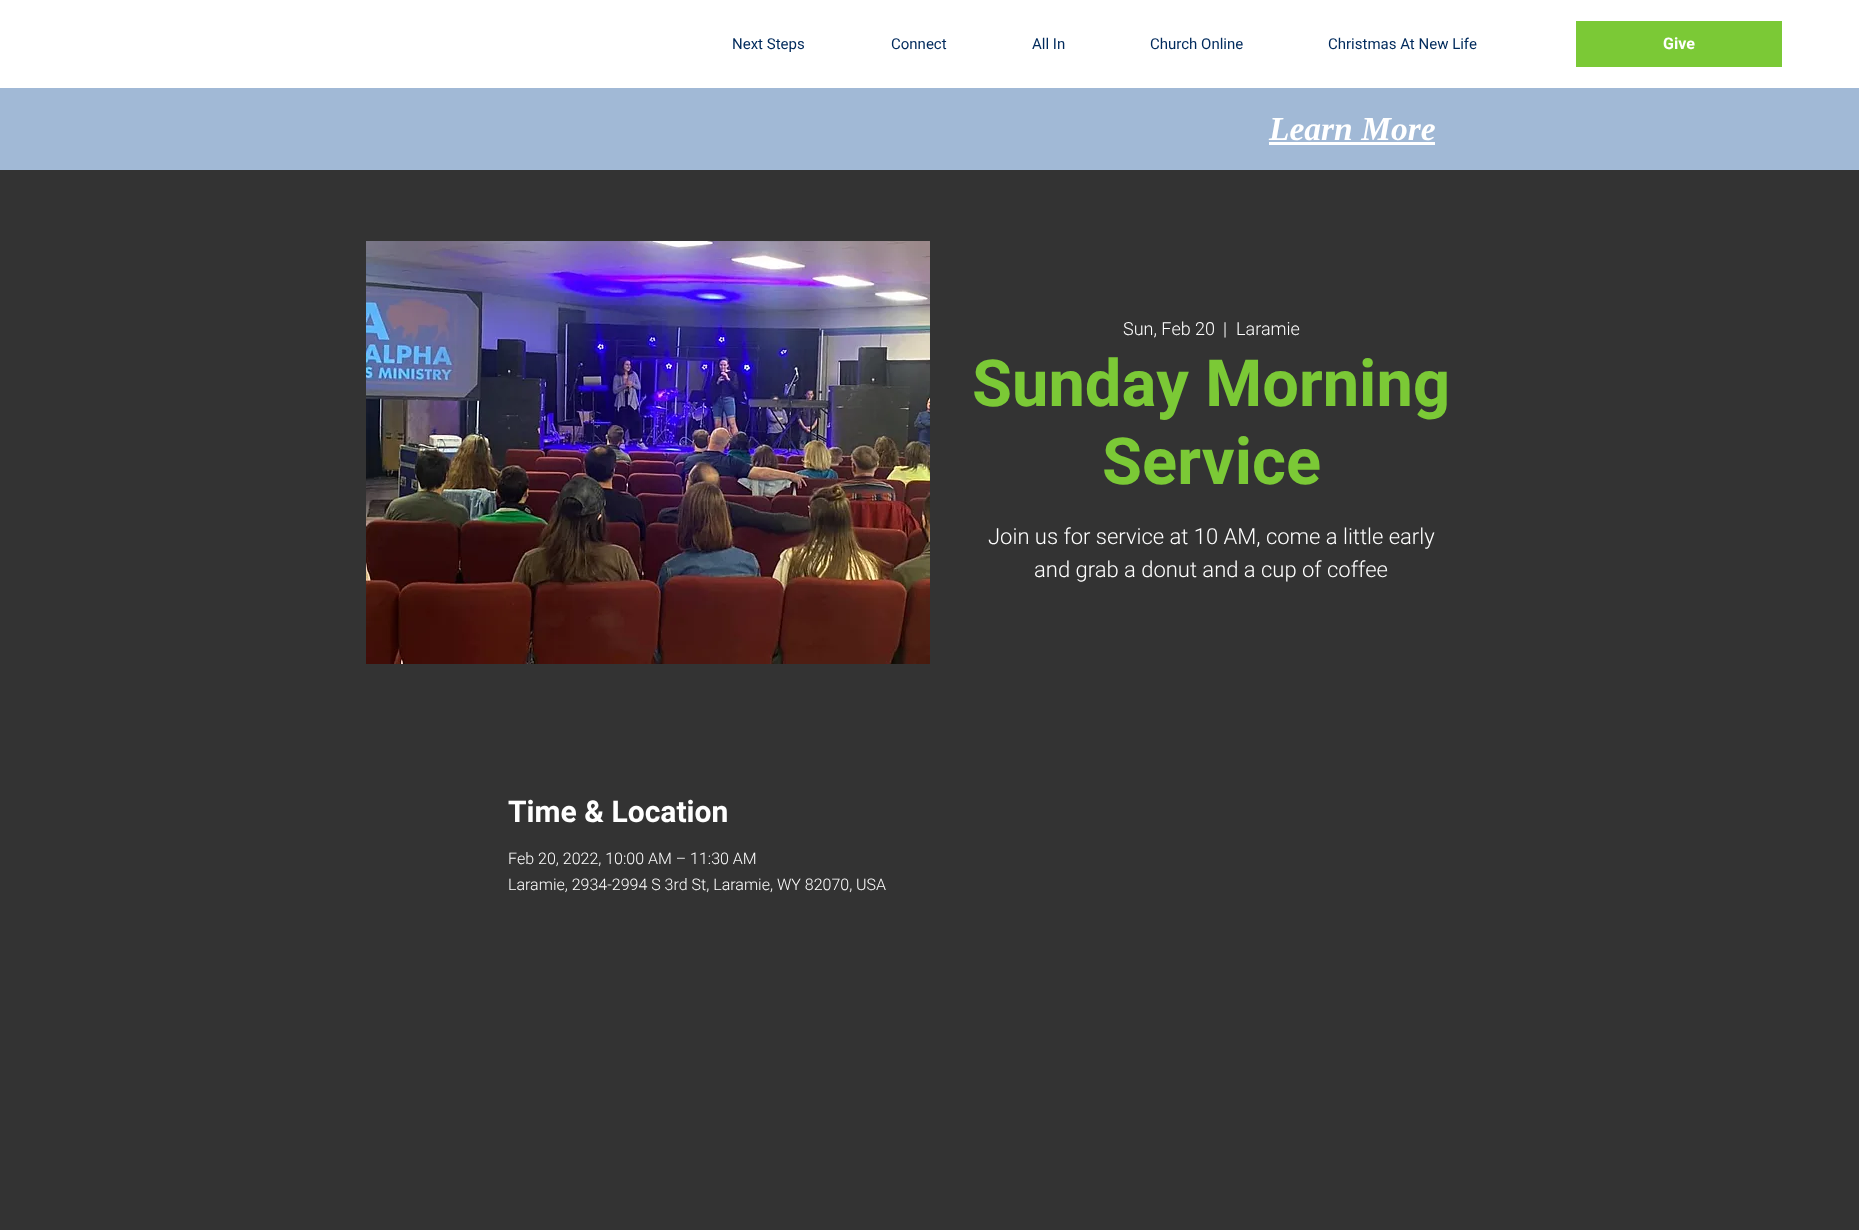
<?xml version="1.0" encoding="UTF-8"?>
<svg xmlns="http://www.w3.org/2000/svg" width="1859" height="1230">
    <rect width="100%" height="100%" fill="#333333"/>
    <rect x="0" y="0" width="1859" height="88" fill="#FFFFFF"/>
    <text x="732" y="49" font-family="Heebo" font-size="15" fill="#002A5C">Next Steps</text>
    <text x="891" y="49" font-family="Heebo" font-size="15" fill="#002A5C">Connect</text>
    <text x="1032" y="49" font-family="Heebo" font-size="15" fill="#002A5C">All In</text>
    <text x="1150" y="49" font-family="Heebo" font-size="15" fill="#002A5C">Church Online</text>
    <text x="1328" y="49" font-family="Heebo" font-size="15" fill="#002A5C">Christmas At New Life</text>
    <rect x="1576" y="21" width="206" height="46" fill="#7BC936"/>
    <text x="1663" y="49" font-family="Heebo" font-size="16" font-weight="700" fill="#FFFFFF">Give</text>
    <rect x="0" y="88" width="1859" height="82" fill="#A1B9D6"/>
    <text x="1269" y="140" font-family="Liberation Serif" font-size="33.5" font-weight="700" font-style="italic" fill="#FFFFFF">Learn More</text>
    <rect x="1269" y="142" width="166" height="3" fill="#FFFFFF"/>
    <image x="366" y="241" width="564" height="423" href="img_01.png"/>
    <text x="1123" y="335" font-family="Heebo" font-size="18" font-weight="300" fill="#FFFFFF">Sun, Feb 20</text>
    <text x="1223" y="335" font-family="Heebo" font-size="18" font-weight="300" fill="#FFFFFF">|</text>
    <text x="1236" y="335" font-family="Heebo" font-size="18" font-weight="300" fill="#FFFFFF">Laramie</text>
    <text x="972" y="406" font-family="Heebo" font-size="65" font-weight="700" fill="#7BC936">Sunday Morning</text>
    <text x="1102" y="484" font-family="Heebo" font-size="65" font-weight="700" fill="#7BC936">Service</text>
    <text x="988" y="544" font-family="Heebo" font-size="22" font-weight="300" fill="#FFFFFF">Join us for service at 10 AM, come a little early</text>
    <text x="1034" y="577" font-family="Heebo" font-size="22" font-weight="300" fill="#FFFFFF">and grab a donut and a cup of coffee</text>
    <text x="508" y="822" font-family="Heebo" font-size="30" font-weight="700" fill="#FFFFFF">Time &amp; Location</text>
    <text font-family="Heebo" font-size="16" font-weight="300" fill="#FFFFFF">
        <tspan x="508" y="864">Feb 20, 2022, 10:00 AM – 11:30 AM</tspan>
        <tspan x="508" y="890">Laramie, 2934-2994 S 3rd St, Laramie, WY 82070, USA</tspan>
    </text>
</svg>
